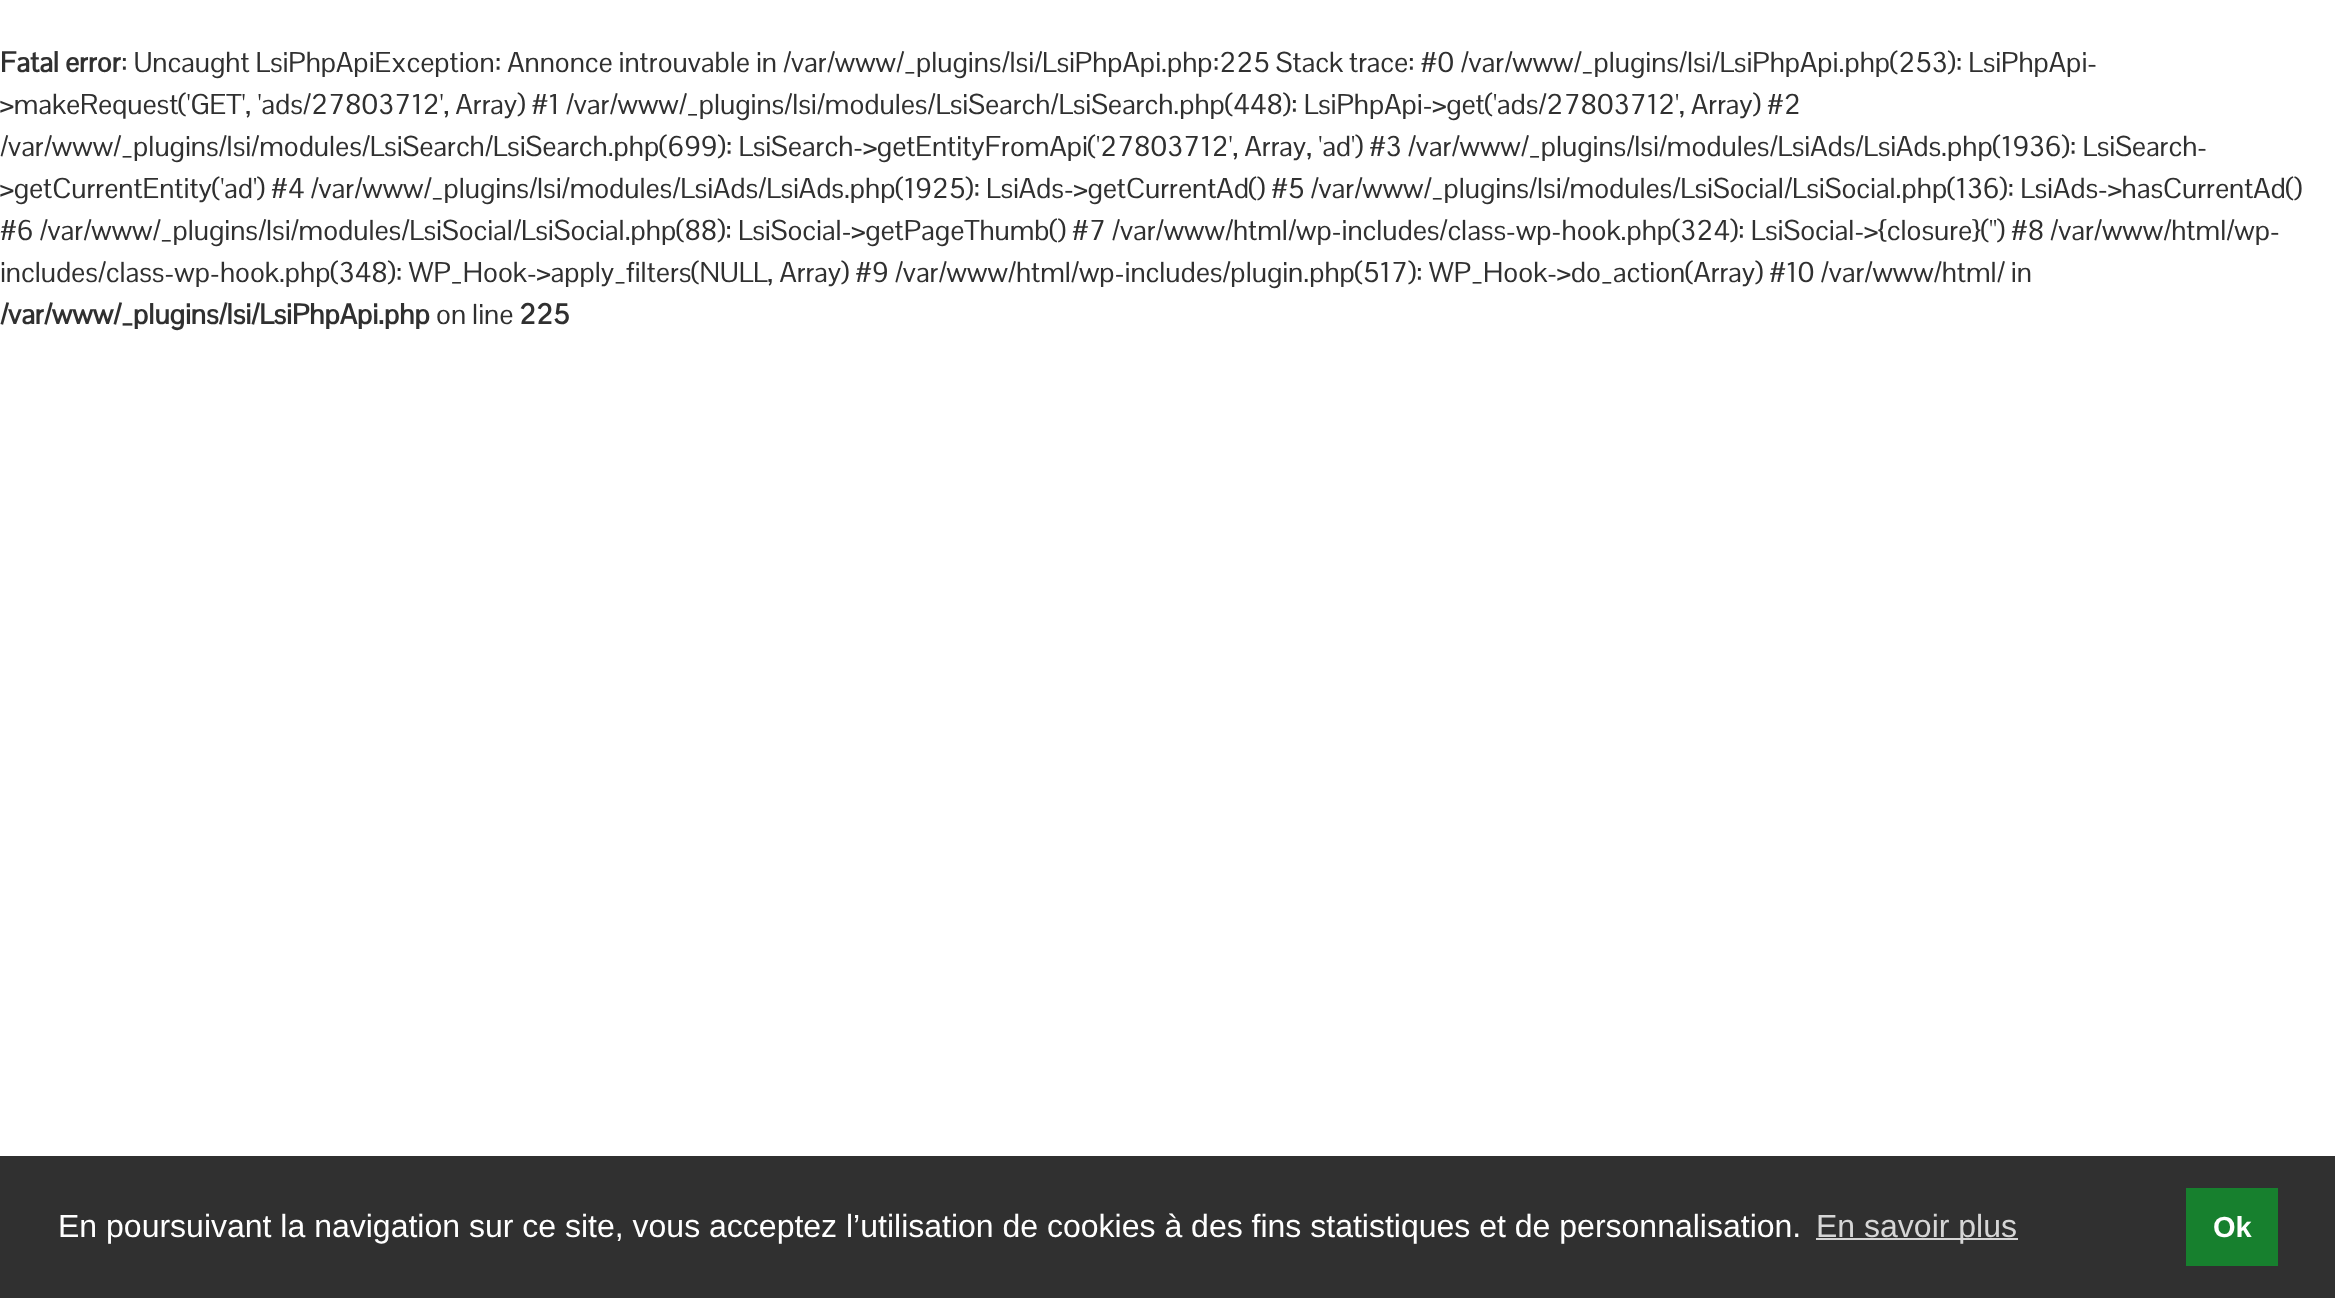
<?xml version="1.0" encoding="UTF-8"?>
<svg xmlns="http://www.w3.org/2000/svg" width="2335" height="1298">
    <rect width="100%" height="100%" fill="#FFFFFF"/>
    <text x="0" y="72" font-family="Pontano Sans" font-size="28" font-weight="700" fill="#303030">Fatal error</text>
    <text x="121" y="72" font-family="Pontano Sans" font-size="28" fill="#303030">: Uncaught LsiPhpApiException: Annonce introuvable in /var/www/_plugins/lsi/LsiPhpApi.php:225 Stack trace: #0 /var/www/_plugins/lsi/LsiPhpApi.php(253): LsiPhpApi-</text>
    <text font-family="Pontano Sans" font-size="28" fill="#303030">
        <tspan x="0" y="114">&gt;makeRequest('GET', 'ads/27803712', Array) #1 /var/www/_plugins/lsi/modules/LsiSearch/LsiSearch.php(448): LsiPhpApi-&gt;get('ads/27803712', Array) #2</tspan>
        <tspan x="0" y="156">/var/www/_plugins/lsi/modules/LsiSearch/LsiSearch.php(699): LsiSearch-&gt;getEntityFromApi('27803712', Array, 'ad') #3 /var/www/_plugins/lsi/modules/LsiAds/LsiAds.php(1936): LsiSearch-</tspan>
        <tspan x="0" y="198">&gt;getCurrentEntity('ad') #4 /var/www/_plugins/lsi/modules/LsiAds/LsiAds.php(1925): LsiAds-&gt;getCurrentAd() #5 /var/www/_plugins/lsi/modules/LsiSocial/LsiSocial.php(136): LsiAds-&gt;hasCurrentAd()</tspan>
        <tspan x="0" y="240">#6 /var/www/_plugins/lsi/modules/LsiSocial/LsiSocial.php(88): LsiSocial-&gt;getPageThumb() #7 /var/www/html/wp-includes/class-wp-hook.php(324): LsiSocial-&gt;{closure}('') #8 /var/www/html/wp-</tspan>
        <tspan x="0" y="282">includes/class-wp-hook.php(348): WP_Hook-&gt;apply_filters(NULL, Array) #9 /var/www/html/wp-includes/plugin.php(517): WP_Hook-&gt;do_action(Array) #10 /var/www/html/ in</tspan>
    </text>
    <text x="0" y="324" font-family="Pontano Sans" font-size="28" font-weight="700" fill="#303030">/var/www/_plugins/lsi/LsiPhpApi.php</text>
    <text x="436" y="324" font-family="Pontano Sans" font-size="28" fill="#303030">on line</text>
    <text x="519" y="324" font-family="Pontano Sans" font-size="28" font-weight="700" fill="#303030">225</text>
    <rect x="0" y="1156" width="2335" height="142" fill="#303030"/>
    <text x="58" y="1237" font-family="Liberation Sans" font-size="32" fill="#FFFFFF">En poursuivant la navigation sur ce site, vous acceptez l’utilisation de cookies à des fins statistiques et de personnalisation.</text>
    <rect x="1816" y="1238" width="202" height="2" fill="#D6D6D6"/>
    <text x="1816" y="1237" font-family="Liberation Sans" font-size="32" fill="#D6D6D6">En savoir plus</text>
    <rect x="2186" y="1188" width="92" height="78" fill="#17802E"/>
    <text x="2213" y="1237" font-family="Liberation Sans" font-size="29" font-weight="700" fill="#FFFFFF">Ok</text>
</svg>
